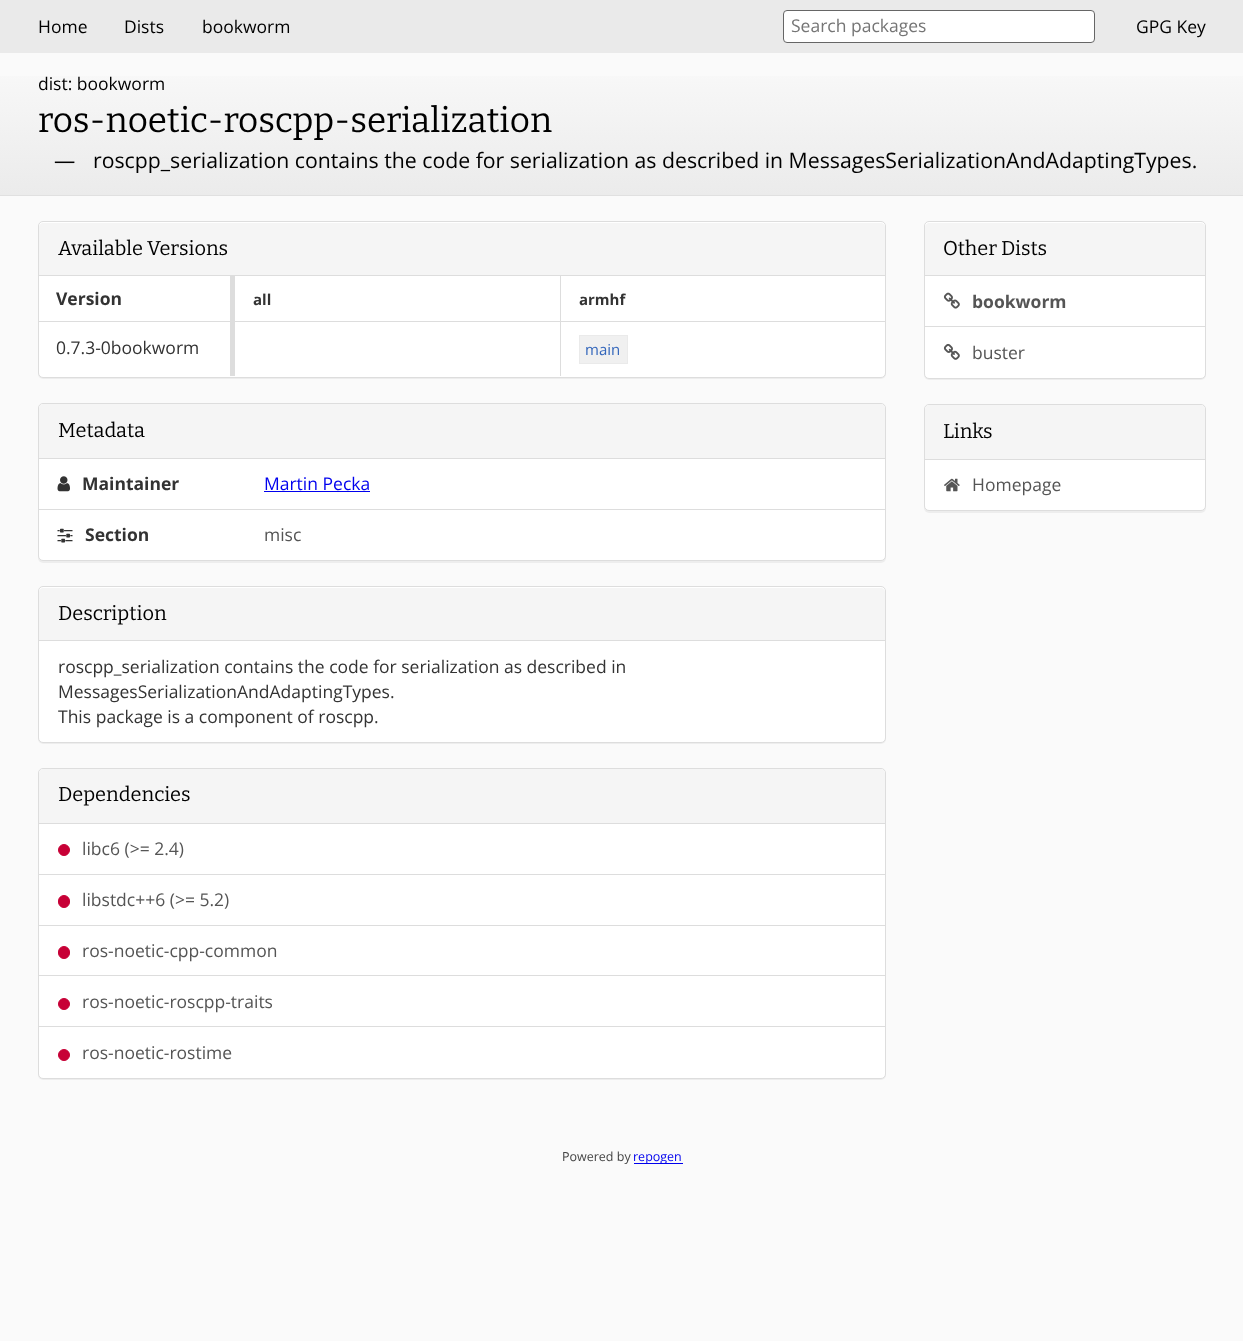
<?xml version="1.0" encoding="UTF-8"?>
<svg xmlns="http://www.w3.org/2000/svg" width="1243" height="1341">
    <defs>
        <linearGradient id="g1" gradientUnits="userSpaceOnUse" x1="622" y1="52" x2="622" y2="195"><stop offset="0" stop-color="#FAFAFA"/><stop offset="1" stop-color="#EBEBEB"/></linearGradient>
        <filter id="blur1" x="-50%" y="-200%" width="200%" height="500%"><feGaussianBlur stdDeviation="0.5"/></filter>
    </defs>
    <rect width="100%" height="100%" fill="#FAFAFA"/>
    <rect x="0" y="0" width="1243" height="53" fill="#EAEAEA"/>
    <text x="38" y="33" font-family="Open Sans" font-size="17.5" fill="#000000">Home</text>
    <text x="124" y="33" font-family="Open Sans" font-size="17.5" fill="#000000">Dists</text>
    <text x="202" y="33" font-family="Open Sans" font-size="17.5" fill="#000000">bookworm</text>
    <rect x="783.5" y="10.5" width="311" height="32" rx="3.5" fill="#FFFFFF" stroke="#666666"/>
    <text x="791" y="32" font-family="Open Sans" font-size="17.5" fill="#757575">Search packages</text>
    <text x="1136" y="33" font-family="Open Sans" font-size="17.5" fill="#000000">GPG Key</text>
    <rect x="0" y="76" width="1243" height="119" fill="url(#g1)"/>
    <rect x="0" y="195" width="1243" height="1" fill="#E0E0E0"/>
    <text x="38" y="90" font-family="Open Sans" font-size="17.5" fill="#000000">dist: bookworm</text>
    <text x="38" y="132" font-family="Bitter" font-size="35" font-weight="100" fill="#000000">ros-noetic-roscpp-serialization</text>
    <text x="54" y="168" font-family="Open Sans" font-size="21.25" fill="#000000">—</text>
    <text x="93" y="168" font-family="Open Sans" font-size="21.25" fill="#000000">roscpp_serialization contains the code for serialization as described in MessagesSerializationAndAdaptingTypes.</text>
    <rect x="38" y="223" width="848" height="156" rx="5" fill="#000000" fill-opacity="0.05" filter="url(#blur1)"/>
    <rect x="38.5" y="221.5" width="847" height="156" rx="4.5" fill="#FFFFFF" stroke="#DDDDDD"/>
    <path d="M 43 223 H 881 C 883 223 885 225 885 227 V 276 H 39 V 227 C 39 225 41 223 43 223 Z" fill="#F5F5F5"/>
    <rect x="39" y="275" width="846" height="1" fill="#DDDDDD"/>
    <text x="58" y="255" font-family="Bitter" font-size="20" font-weight="100" fill="#000000">Available Versions</text>
    <rect x="39" y="321" width="846" height="1" fill="#DDDDDD"/>
    <text x="56" y="305" font-family="Open Sans" font-size="17.5" font-weight="700" fill="#333333">Version</text>
    <text x="253" y="305" font-family="Open Sans" font-size="15" font-weight="700" fill="#333333">all</text>
    <text x="579" y="305" font-family="Open Sans" font-size="15" font-weight="700" fill="#333333">armhf</text>
    <rect x="230" y="276" width="5" height="100" fill="#DDDDDD"/>
    <text x="56" y="354" font-family="Open Sans" font-size="17.5" fill="#333333">0.7.3-0bookworm</text>
    <rect x="560" y="276" width="1" height="100" fill="#DDDDDD"/>
    <rect x="579.5" y="335.5" width="48" height="28" fill="#F0F0F0" stroke="#EAEAEA"/>
    <text x="585" y="355" font-family="Open Sans" font-size="15" fill="#3366BB">main</text>
    <rect x="38" y="404" width="848" height="159" rx="5" fill="#000000" fill-opacity="0.05" filter="url(#blur1)"/>
    <rect x="38.5" y="403.5" width="847" height="157" rx="4.5" fill="#FFFFFF" stroke="#DDDDDD"/>
    <path d="M 43 404 H 881 C 883 404 885 406 885 408 V 459 H 39 V 408 C 39 406 41 404 43 404 Z" fill="#F5F5F5"/>
    <rect x="39" y="458" width="846" height="1" fill="#DDDDDD"/>
    <text x="58" y="437" font-family="Bitter" font-size="20" font-weight="100" fill="#000000">Metadata</text>
    <rect x="39" y="509" width="846" height="1" fill="#DDDDDD"/>
    <image x="57" y="476" width="13" height="16" href="img_01.png"/>
    <text x="82" y="490" font-family="Open Sans" font-size="17.5" font-weight="700" fill="#333333">Maintainer</text>
    <text x="264" y="490" font-family="Open Sans" font-size="17.5" fill="#0000EE">Martin Pecka</text>
    <rect x="264" y="491" width="106" height="1" fill="#0000EE"/>
    <image x="57" y="528" width="16" height="15" href="img_02.png"/>
    <text x="85" y="541" font-family="Open Sans" font-size="17.5" font-weight="700" fill="#333333">Section</text>
    <text x="264" y="541" font-family="Open Sans" font-size="17.5" fill="#555555">misc</text>
    <rect x="38" y="588" width="848" height="156" rx="5" fill="#000000" fill-opacity="0.05" filter="url(#blur1)"/>
    <rect x="38.5" y="586.5" width="847" height="156" rx="4.5" fill="#FFFFFF" stroke="#DDDDDD"/>
    <path d="M 43 588 H 881 C 883 588 885 590 885 592 V 641 H 39 V 592 C 39 590 41 588 43 588 Z" fill="#F5F5F5"/>
    <rect x="39" y="640" width="846" height="1" fill="#DDDDDD"/>
    <text x="58" y="620" font-family="Bitter" font-size="20" font-weight="100" fill="#000000">Description</text>
    <text font-family="Open Sans" font-size="17.5" fill="#333333">
        <tspan x="58" y="673">roscpp_serialization contains the code for serialization as described in</tspan>
        <tspan x="58" y="698">MessagesSerializationAndAdaptingTypes.</tspan>
        <tspan x="58" y="723">This package is a component of roscpp.</tspan>
    </text>
    <rect x="38" y="769" width="848" height="311" rx="5" fill="#000000" fill-opacity="0.05" filter="url(#blur1)"/>
    <rect x="38.5" y="768.5" width="847" height="310" rx="4.5" fill="#FFFFFF" stroke="#DDDDDD"/>
    <path d="M 43 769 H 881 C 883 769 885 771 885 773 V 824 H 39 V 773 C 39 771 41 769 43 769 Z" fill="#F5F5F5"/>
    <rect x="39" y="823" width="846" height="1" fill="#DDDDDD"/>
    <text x="58" y="801" font-family="Bitter" font-size="20" font-weight="100" fill="#000000">Dependencies</text>
    <rect x="39" y="874" width="846" height="1" fill="#DDDDDD"/>
    <circle cx="64" cy="850" r="5.5" fill="#C70036" stroke="#C70036"/>
    <text x="82" y="855" font-family="Open Sans" font-size="17.5" fill="#555555">libc6 (&gt;= 2.4)</text>
    <rect x="39" y="925" width="846" height="1" fill="#DDDDDD"/>
    <rect x="58.5" y="895.5" width="11" height="12" rx="5.5" fill="#C70036" stroke="#C70036"/>
    <text x="82" y="906" font-family="Open Sans" font-size="17.5" fill="#555555">libstdc++6 (&gt;= 5.2)</text>
    <rect x="39" y="975" width="846" height="1" fill="#DDDDDD"/>
    <rect x="58.5" y="946.5" width="11" height="12" rx="5.5" fill="#C70036" stroke="#C70036"/>
    <text x="82" y="957" font-family="Open Sans" font-size="17.5" fill="#555555">ros-noetic-cpp-common</text>
    <rect x="39" y="1026" width="846" height="1" fill="#DDDDDD"/>
    <circle cx="64" cy="1004" r="5.5" fill="#C70036" stroke="#C70036"/>
    <text x="82" y="1008" font-family="Open Sans" font-size="17.5" fill="#555555">ros-noetic-roscpp-traits</text>
    <circle cx="64" cy="1055" r="5.5" fill="#C70036" stroke="#C70036"/>
    <text x="82" y="1059" font-family="Open Sans" font-size="17.5" fill="#555555">ros-noetic-rostime</text>
    <rect x="924" y="223" width="282" height="157" rx="5" fill="#000000" fill-opacity="0.05" filter="url(#blur1)"/>
    <rect x="924.5" y="221.5" width="281" height="157" rx="4.5" fill="#FFFFFF" stroke="#DDDDDD"/>
    <path d="M 929 223 H 1201 C 1203 223 1205 225 1205 227 V 276 H 925 V 227 C 925 225 927 223 929 223 Z" fill="#F5F5F5"/>
    <rect x="925" y="275" width="280" height="1" fill="#DDDDDD"/>
    <text x="943" y="255" font-family="Bitter" font-size="20" font-weight="100" fill="#000000">Other Dists</text>
    <rect x="925" y="326" width="280" height="1" fill="#DDDDDD"/>
    <image x="943" y="292" width="17" height="17" href="img_03.png"/>
    <text x="972" y="308" font-family="Open Sans" font-size="17.5" font-weight="700" fill="#555555">bookworm</text>
    <image x="943" y="343" width="17" height="17" href="img_04.png"/>
    <text x="972" y="359" font-family="Open Sans" font-size="17.5" fill="#555555">buster</text>
    <rect x="924" y="405" width="282" height="108" rx="5" fill="#000000" fill-opacity="0.05" filter="url(#blur1)"/>
    <rect x="924.5" y="404.5" width="281" height="106" rx="4.5" fill="#FFFFFF" stroke="#DDDDDD"/>
    <path d="M 929 405 H 1201 C 1203 405 1205 407 1205 409 V 460 H 925 V 409 C 925 407 927 405 929 405 Z" fill="#F5F5F5"/>
    <rect x="925" y="459" width="280" height="1" fill="#DDDDDD"/>
    <text x="943" y="438" font-family="Bitter" font-size="20" font-weight="100" fill="#000000">Links</text>
    <image x="944" y="478" width="16" height="14" href="img_05.png"/>
    <text x="972" y="491" font-family="Open Sans" font-size="17.5" fill="#555555">Homepage</text>
    <text x="562" y="1161" font-family="Open Sans" font-size="12.5" fill="#444444">Powered by</text>
    <rect x="634" y="1163" width="49" height="1" fill="#0000EE"/>
    <text x="633" y="1161" font-family="Open Sans" font-size="12.5" fill="#0000EE">repogen</text>
</svg>
